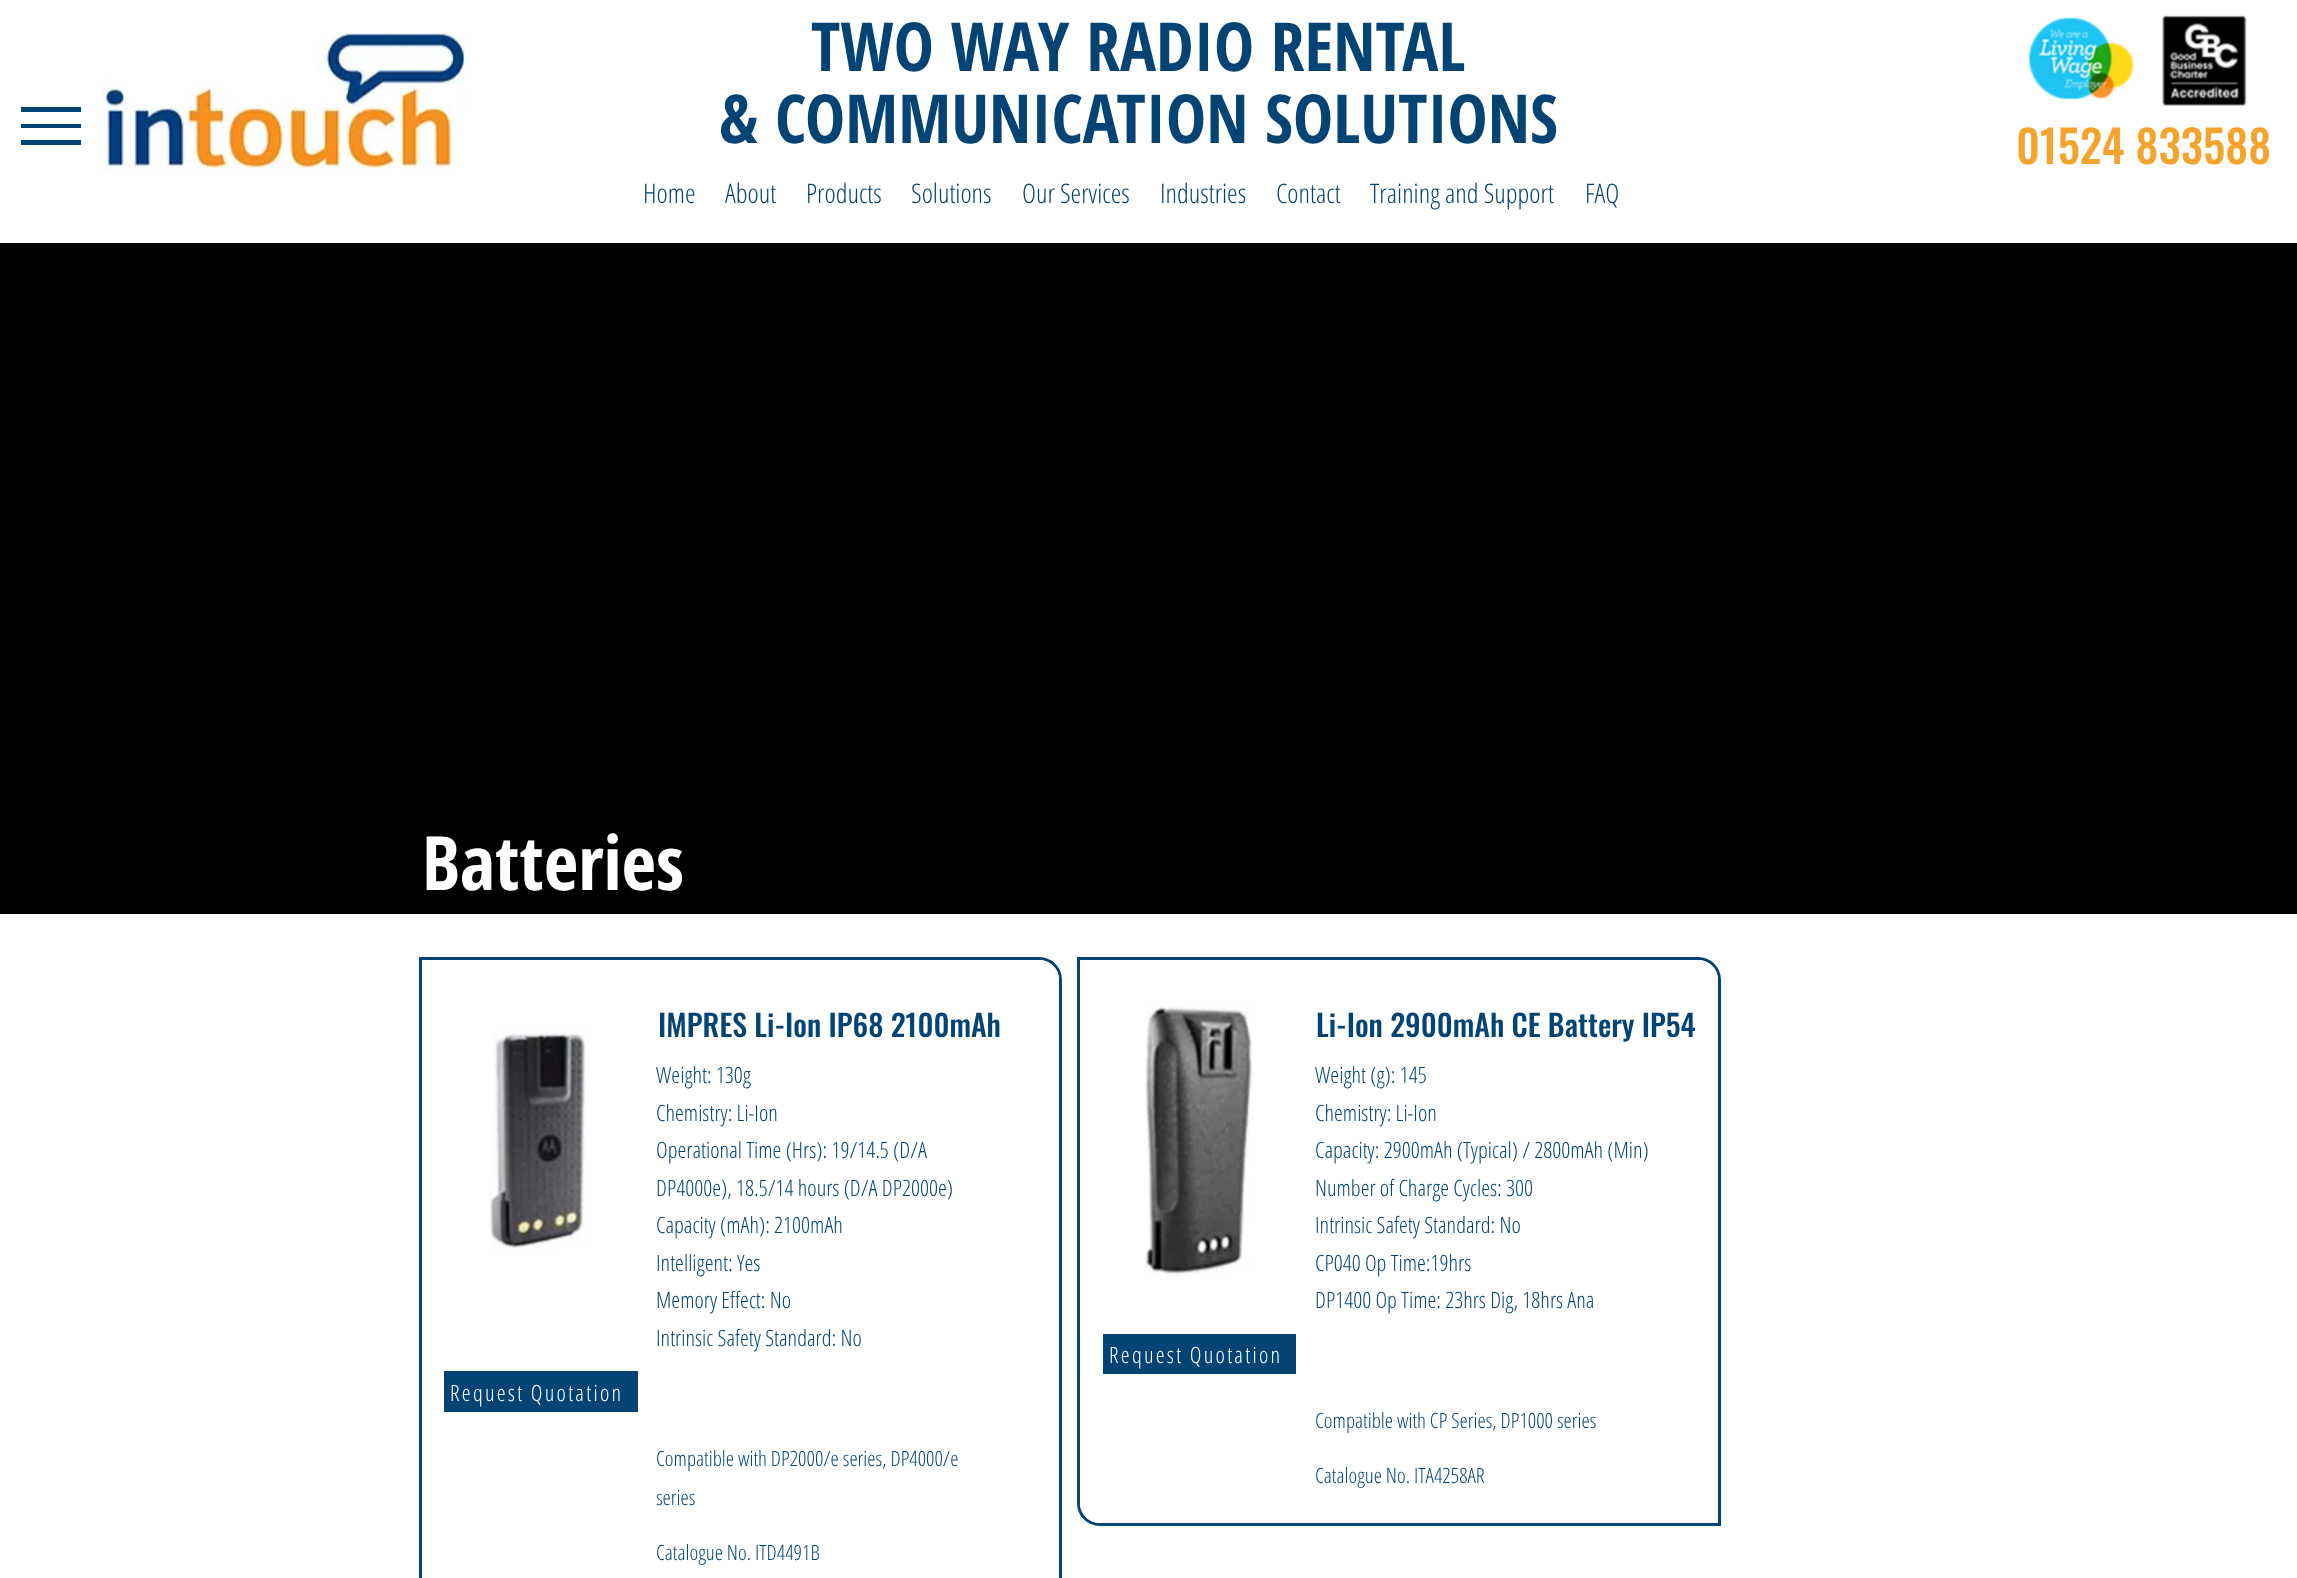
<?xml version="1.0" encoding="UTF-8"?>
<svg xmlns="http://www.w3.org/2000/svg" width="2297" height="1578">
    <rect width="100%" height="100%" fill="#000000"/>
    <rect x="0" y="0" width="2297" height="243" fill="#FFFFFF"/>
    <rect x="21" y="140" width="60" height="5" fill="#044474"/>
    <rect x="21" y="107" width="60" height="5" fill="#044474"/>
    <rect x="21" y="124" width="60" height="4" fill="#044474"/>
    <image x="102" y="33" width="363" height="137" href="img_01.png"/>
    <text x="811" y="71" font-family="Open Sans Condensed" font-size="67.5" font-weight="700" fill="#044474">TWO WAY RADIO RENTAL</text>
    <text x="719" y="143" font-family="Open Sans Condensed" font-size="67.5" font-weight="700" fill="#044474">&amp; COMMUNICATION SOLUTIONS</text>
    <text x="643" y="203" font-family="Open Sans Condensed" font-size="27" font-weight="300" fill="#044474">Home</text>
    <text x="725" y="203" font-family="Open Sans Condensed" font-size="27" font-weight="300" fill="#044474">About</text>
    <text x="806" y="203" font-family="Open Sans Condensed" font-size="27" font-weight="300" fill="#044474">Products</text>
    <text x="911" y="203" font-family="Open Sans Condensed" font-size="27" font-weight="300" fill="#044474">Solutions</text>
    <text x="1022" y="203" font-family="Open Sans Condensed" font-size="27" font-weight="300" fill="#044474">Our Services</text>
    <text x="1160" y="203" font-family="Open Sans Condensed" font-size="27" font-weight="300" fill="#044474">Industries</text>
    <text x="1276" y="203" font-family="Open Sans Condensed" font-size="27" font-weight="300" fill="#044474">Contact</text>
    <text x="1370" y="203" font-family="Open Sans Condensed" font-size="27" font-weight="300" fill="#044474">Training and Support</text>
    <text x="1585" y="203" font-family="Open Sans Condensed" font-size="27" font-weight="300" fill="#044474">FAQ</text>
    <image x="2029" y="17" width="105" height="83" href="img_02.png"/>
    <image x="2162" y="15" width="85" height="91" href="img_03.png"/>
    <text x="2016" y="164" font-family="Oswald" font-size="45" font-weight="500" fill="#F4A42D">01524 833588</text>
    <text x="422" y="890" font-family="Open Sans Condensed" font-size="75" font-weight="700" fill="#FFFFFF">Batteries</text>
    <rect x="0" y="914" width="2297" height="664" fill="#FFFFFF"/>
    <path d="M 420.5 958.5 H 1039 C 1051 958.5 1060.5 968 1060.5 980 V 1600.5 H 442 C 430 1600.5 420.5 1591 420.5 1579 Z" fill="none" stroke="#044474" stroke-width="3"/>
    <path d="M 422 960 H 1039 C 1050 960 1059 969 1059 980 V 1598 H 442 C 431 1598 422 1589 422 1578 Z" fill="#FFFFFF"/>
    <text x="658" y="1037" font-family="Oswald" font-size="30" font-weight="500" fill="#044474">IMPRES Li-Ion IP68 2100mAh</text>
    <image x="489" y="1031" width="101" height="218" href="img_04.png"/>
    <text font-family="Open Sans Condensed" font-size="22.5" font-weight="300" fill="#044474">
        <tspan x="656" y="1083">Weight: 130g</tspan>
        <tspan x="656" y="1121">Chemistry: Li-Ion</tspan>
        <tspan x="656" y="1158">Operational Time (Hrs): 19/14.5 (D/A</tspan>
        <tspan x="656" y="1196">DP4000e), 18.5/14 hours (D/A DP2000e)</tspan>
        <tspan x="656" y="1233">Capacity (mAh): 2100mAh</tspan>
        <tspan x="656" y="1271">Intelligent: Yes</tspan>
        <tspan x="656" y="1308">Memory Effect: No</tspan>
        <tspan x="656" y="1346">Intrinsic Safety Standard: No</tspan>
    </text>
    <rect x="444" y="1371" width="194" height="41" fill="#044474"/>
    <text x="450" y="1401" font-family="Open Sans Condensed" font-size="22.5" font-weight="300" letter-spacing="2.25" fill="#FFFFFF">Request Quotation</text>
    <text font-family="Open Sans Condensed" font-size="21" font-weight="300" fill="#044474">
        <tspan x="656" y="1466">Compatible with DP2000/e series, DP4000/e</tspan>
        <tspan x="656" y="1505">series</tspan>
    </text>
    <text x="656" y="1560" font-family="Open Sans Condensed" font-size="21" font-weight="300" fill="#044474">Catalogue No. ITD4491B</text>
    <path d="M 1078.5 958.5 H 1698 C 1710 958.5 1719.5 968 1719.5 980 V 1524.5 H 1100 C 1088 1524.5 1078.5 1515 1078.5 1503 Z" fill="none" stroke="#044474" stroke-width="3"/>
    <path d="M 1080 960 H 1698 C 1709 960 1718 969 1718 980 V 1523 H 1100 C 1089 1523 1080 1514 1080 1503 Z" fill="#FFFFFF"/>
    <image x="1145" y="1007" width="109" height="270" href="img_05.png"/>
    <text x="1316" y="1037" font-family="Oswald" font-size="30" font-weight="500" fill="#044474">Li-Ion 2900mAh CE Battery IP54</text>
    <text font-family="Open Sans Condensed" font-size="22.5" font-weight="300" fill="#044474">
        <tspan x="1315" y="1083">Weight (g): 145</tspan>
        <tspan x="1315" y="1121">Chemistry: Li-Ion</tspan>
        <tspan x="1315" y="1158">Capacity: 2900mAh (Typical) / 2800mAh (Min)</tspan>
        <tspan x="1315" y="1196">Number of Charge Cycles: 300</tspan>
        <tspan x="1315" y="1233">Intrinsic Safety Standard: No</tspan>
        <tspan x="1315" y="1271">CP040 Op Time:19hrs</tspan>
        <tspan x="1315" y="1308">DP1400 Op Time: 23hrs Dig, 18hrs Ana</tspan>
    </text>
    <rect x="1103" y="1334" width="193" height="40" fill="#044474"/>
    <text x="1109" y="1363" font-family="Open Sans Condensed" font-size="22.5" font-weight="300" letter-spacing="2.25" fill="#FFFFFF">Request Quotation</text>
    <text x="1315" y="1428" font-family="Open Sans Condensed" font-size="21" font-weight="300" fill="#044474">Compatible with CP Series, DP1000 series</text>
    <text x="1315" y="1483" font-family="Open Sans Condensed" font-size="21" font-weight="300" fill="#044474">Catalogue No. ITA4258AR</text>
</svg>
